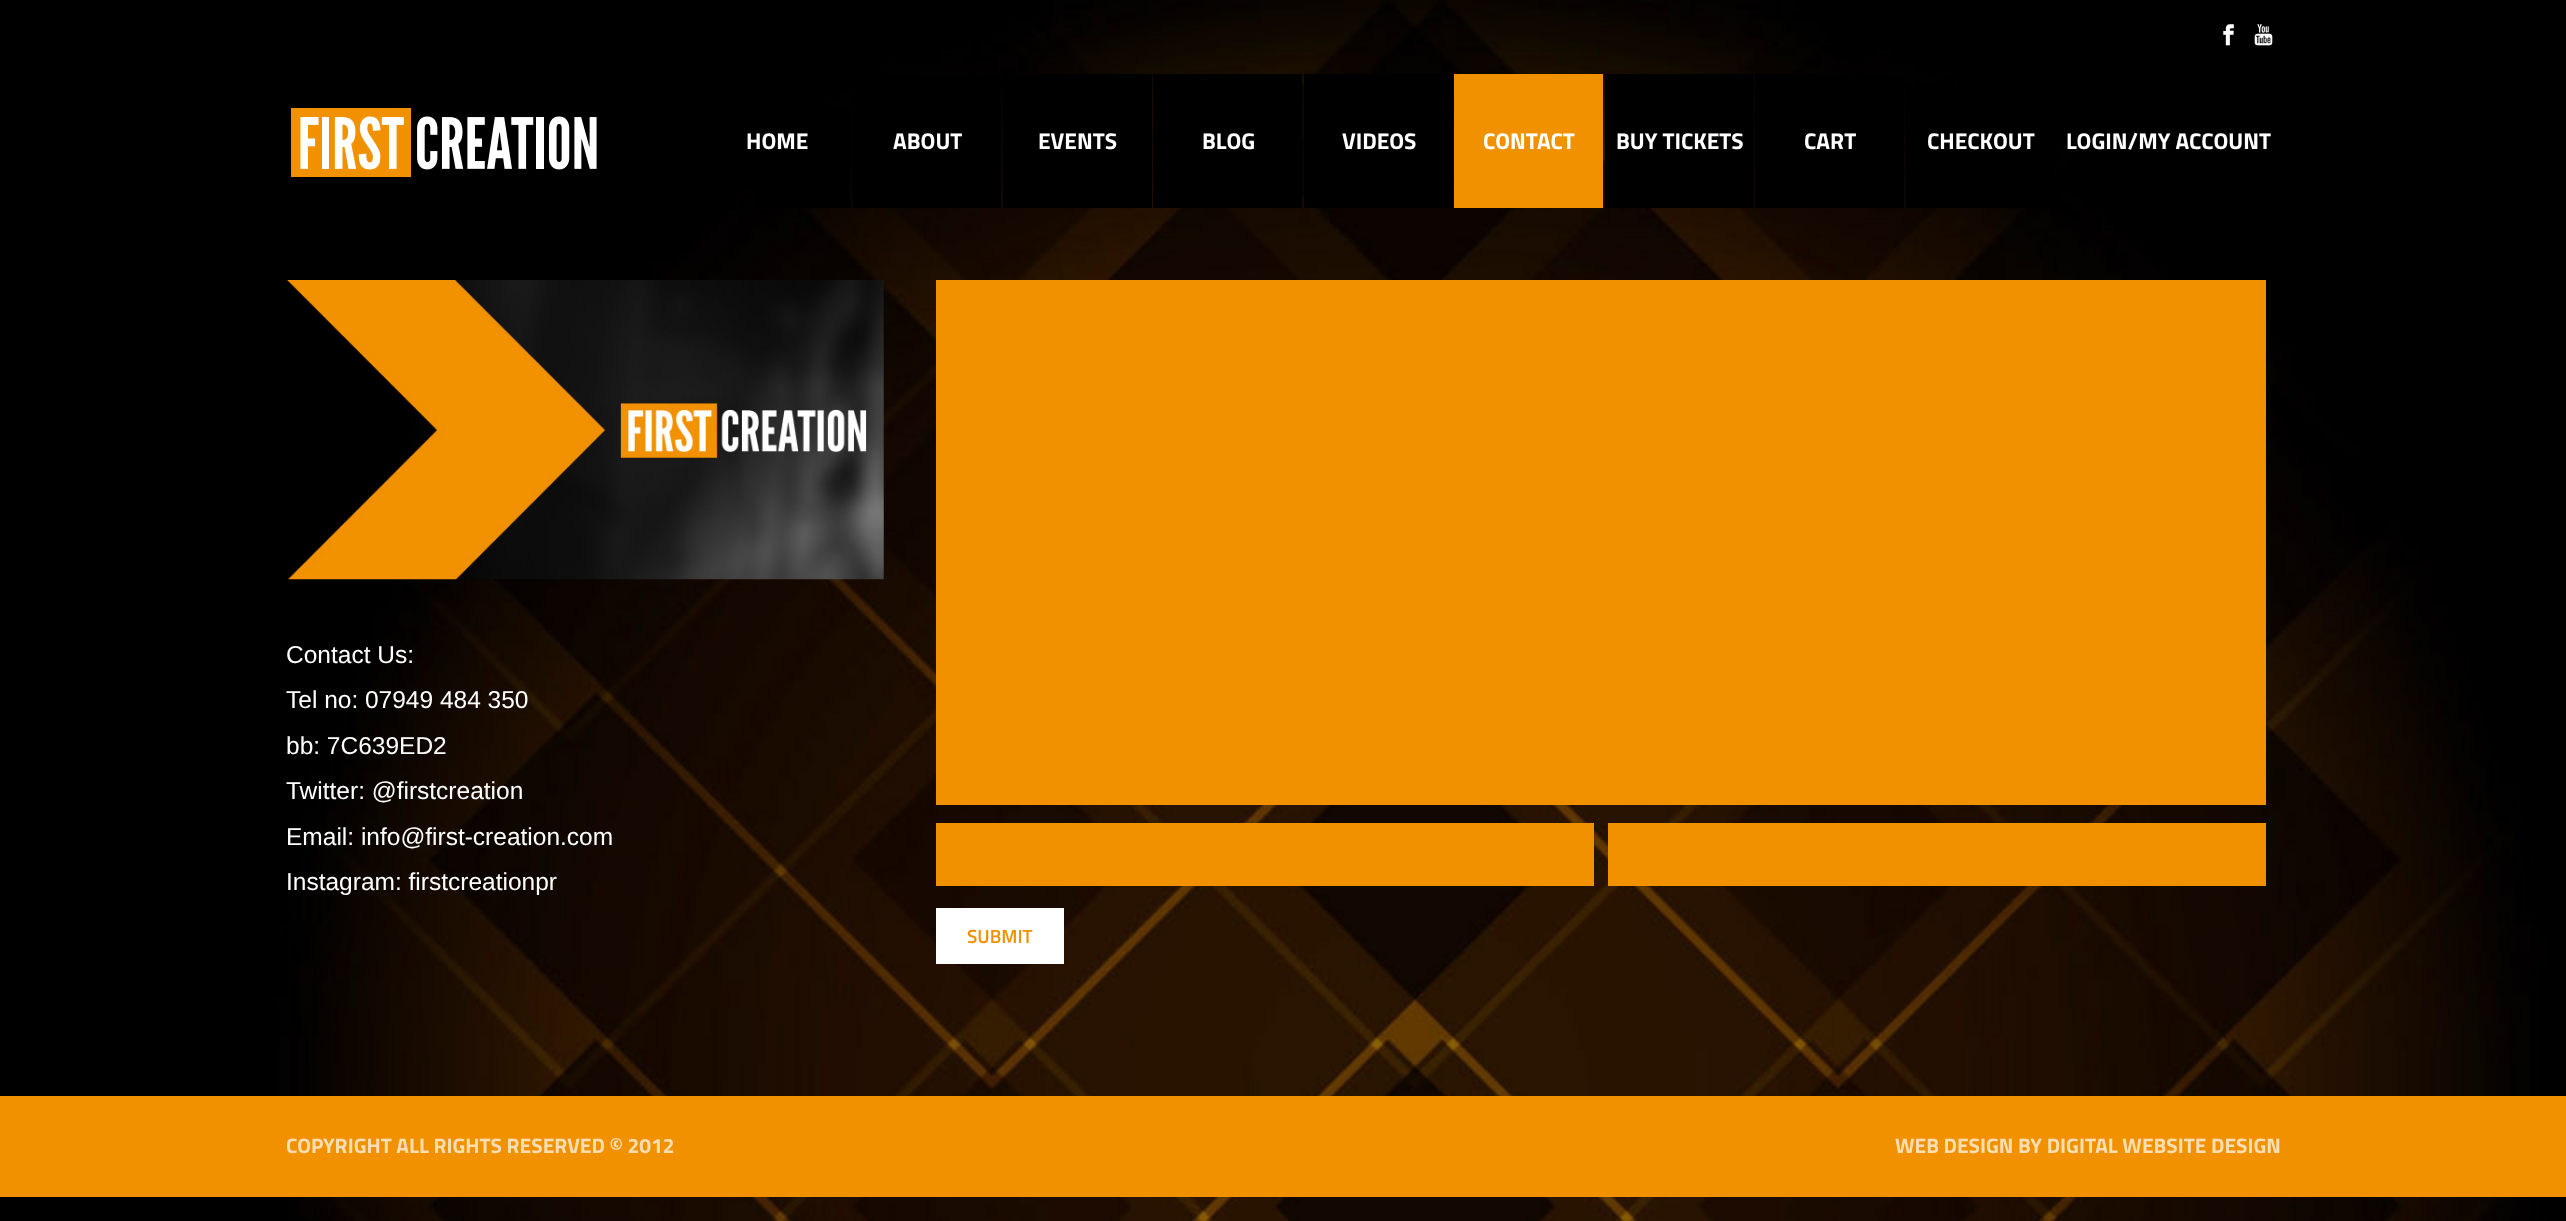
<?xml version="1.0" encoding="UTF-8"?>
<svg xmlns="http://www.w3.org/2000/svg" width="2566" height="1221">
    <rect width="100%" height="100%" fill="#FFFFFF"/>
    <image x="0" y="0" width="2566" height="1221" href="img_01.png"/>
    <image x="291" y="108" width="306" height="69" href="img_02.png"/>
    <text x="2218" y="44" font-family="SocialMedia" font-size="21" fill="#FFFFFF">⤭</text>
    <text x="2253" y="44" font-family="SocialMedia" font-size="21" fill="#FFFFFF">☡</text>
    <rect x="756" y="106" width="95" height="102" fill="#000000"/>
    <text x="746" y="149" font-family="Titillium Web" font-size="22.75" font-weight="700" fill="#FFFFFF">HOME</text>
    <rect x="852" y="74" width="149" height="134" fill="#000000"/>
    <text x="893" y="149" font-family="Titillium Web" font-size="22.75" font-weight="700" fill="#FFFFFF">ABOUT</text>
    <rect x="1003" y="74" width="149" height="134" fill="#000000"/>
    <text x="1038" y="149" font-family="Titillium Web" font-size="22.75" font-weight="700" fill="#FFFFFF">EVENTS</text>
    <rect x="1153" y="74" width="149" height="134" fill="#000000"/>
    <text x="1202" y="149" font-family="Titillium Web" font-size="22.75" font-weight="700" fill="#FFFFFF">BLOG</text>
    <rect x="1304" y="74" width="149" height="134" fill="#000000"/>
    <text x="1342" y="149" font-family="Titillium Web" font-size="22.75" font-weight="700" fill="#FFFFFF">VIDEOS</text>
    <rect x="1454" y="74" width="149" height="134" fill="#F29100"/>
    <text x="1483" y="149" font-family="Titillium Web" font-size="22.75" font-weight="700" fill="#FFFFFF">CONTACT</text>
    <rect x="1605" y="74" width="149" height="134" fill="#000000"/>
    <text x="1616" y="149" font-family="Titillium Web" font-size="22.75" font-weight="700" fill="#FFFFFF">BUY TICKETS</text>
    <rect x="1755" y="74" width="149" height="134" fill="#000000"/>
    <text x="1804" y="149" font-family="Titillium Web" font-size="22.75" font-weight="700" fill="#FFFFFF">CART</text>
    <rect x="1906" y="85" width="149" height="123" fill="#000000"/>
    <text x="1927" y="149" font-family="Titillium Web" font-size="22.75" font-weight="700" fill="#FFFFFF">CHECKOUT</text>
    <rect x="2056" y="162" width="6" height="46" fill="#000000"/>
    <text x="2066" y="149" font-family="Titillium Web" font-size="22.75" font-weight="700" fill="#FFFFFF">LOGIN/MY ACCOUNT</text>
    <image x="287" y="280" width="597" height="300" href="img_03.png"/>
    <text font-family="Liberation Sans" font-size="24.5" fill="#FFFFFF">
        <tspan x="286" y="663">Contact Us:</tspan>
        <tspan x="286" y="708">Tel no: 07949 484 350</tspan>
        <tspan x="286" y="754">bb: 7C639ED2</tspan>
        <tspan x="286" y="799">Twitter: @firstcreation</tspan>
        <tspan x="286" y="845">Email: info@first-creation.com</tspan>
        <tspan x="286" y="890">Instagram: firstcreationpr</tspan>
    </text>
    <rect x="936" y="280" width="1330" height="525" fill="#F29100"/>
    <rect x="936" y="823" width="658" height="63" fill="#F29100"/>
    <rect x="1608" y="823" width="658" height="63" fill="#F29100"/>
    <rect x="936" y="908" width="128" height="56" fill="#FFFFFF"/>
    <text x="967" y="943" font-family="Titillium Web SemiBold" font-size="19" font-weight="600" fill="#F29100">SUBMIT</text>
    <rect x="0" y="1096" width="2566" height="101" fill="#F29100"/>
    <text x="286" y="1153" font-family="Titillium Web" font-size="21" font-weight="700" fill="#FBDEB3">COPYRIGHT ALL RIGHTS RESERVED © 2012</text>
    <text x="1895" y="1153" font-family="Titillium Web" font-size="21" font-weight="700" fill="#FBDEB3">WEB DESIGN BY DIGITAL WEBSITE DESIGN</text>
</svg>
